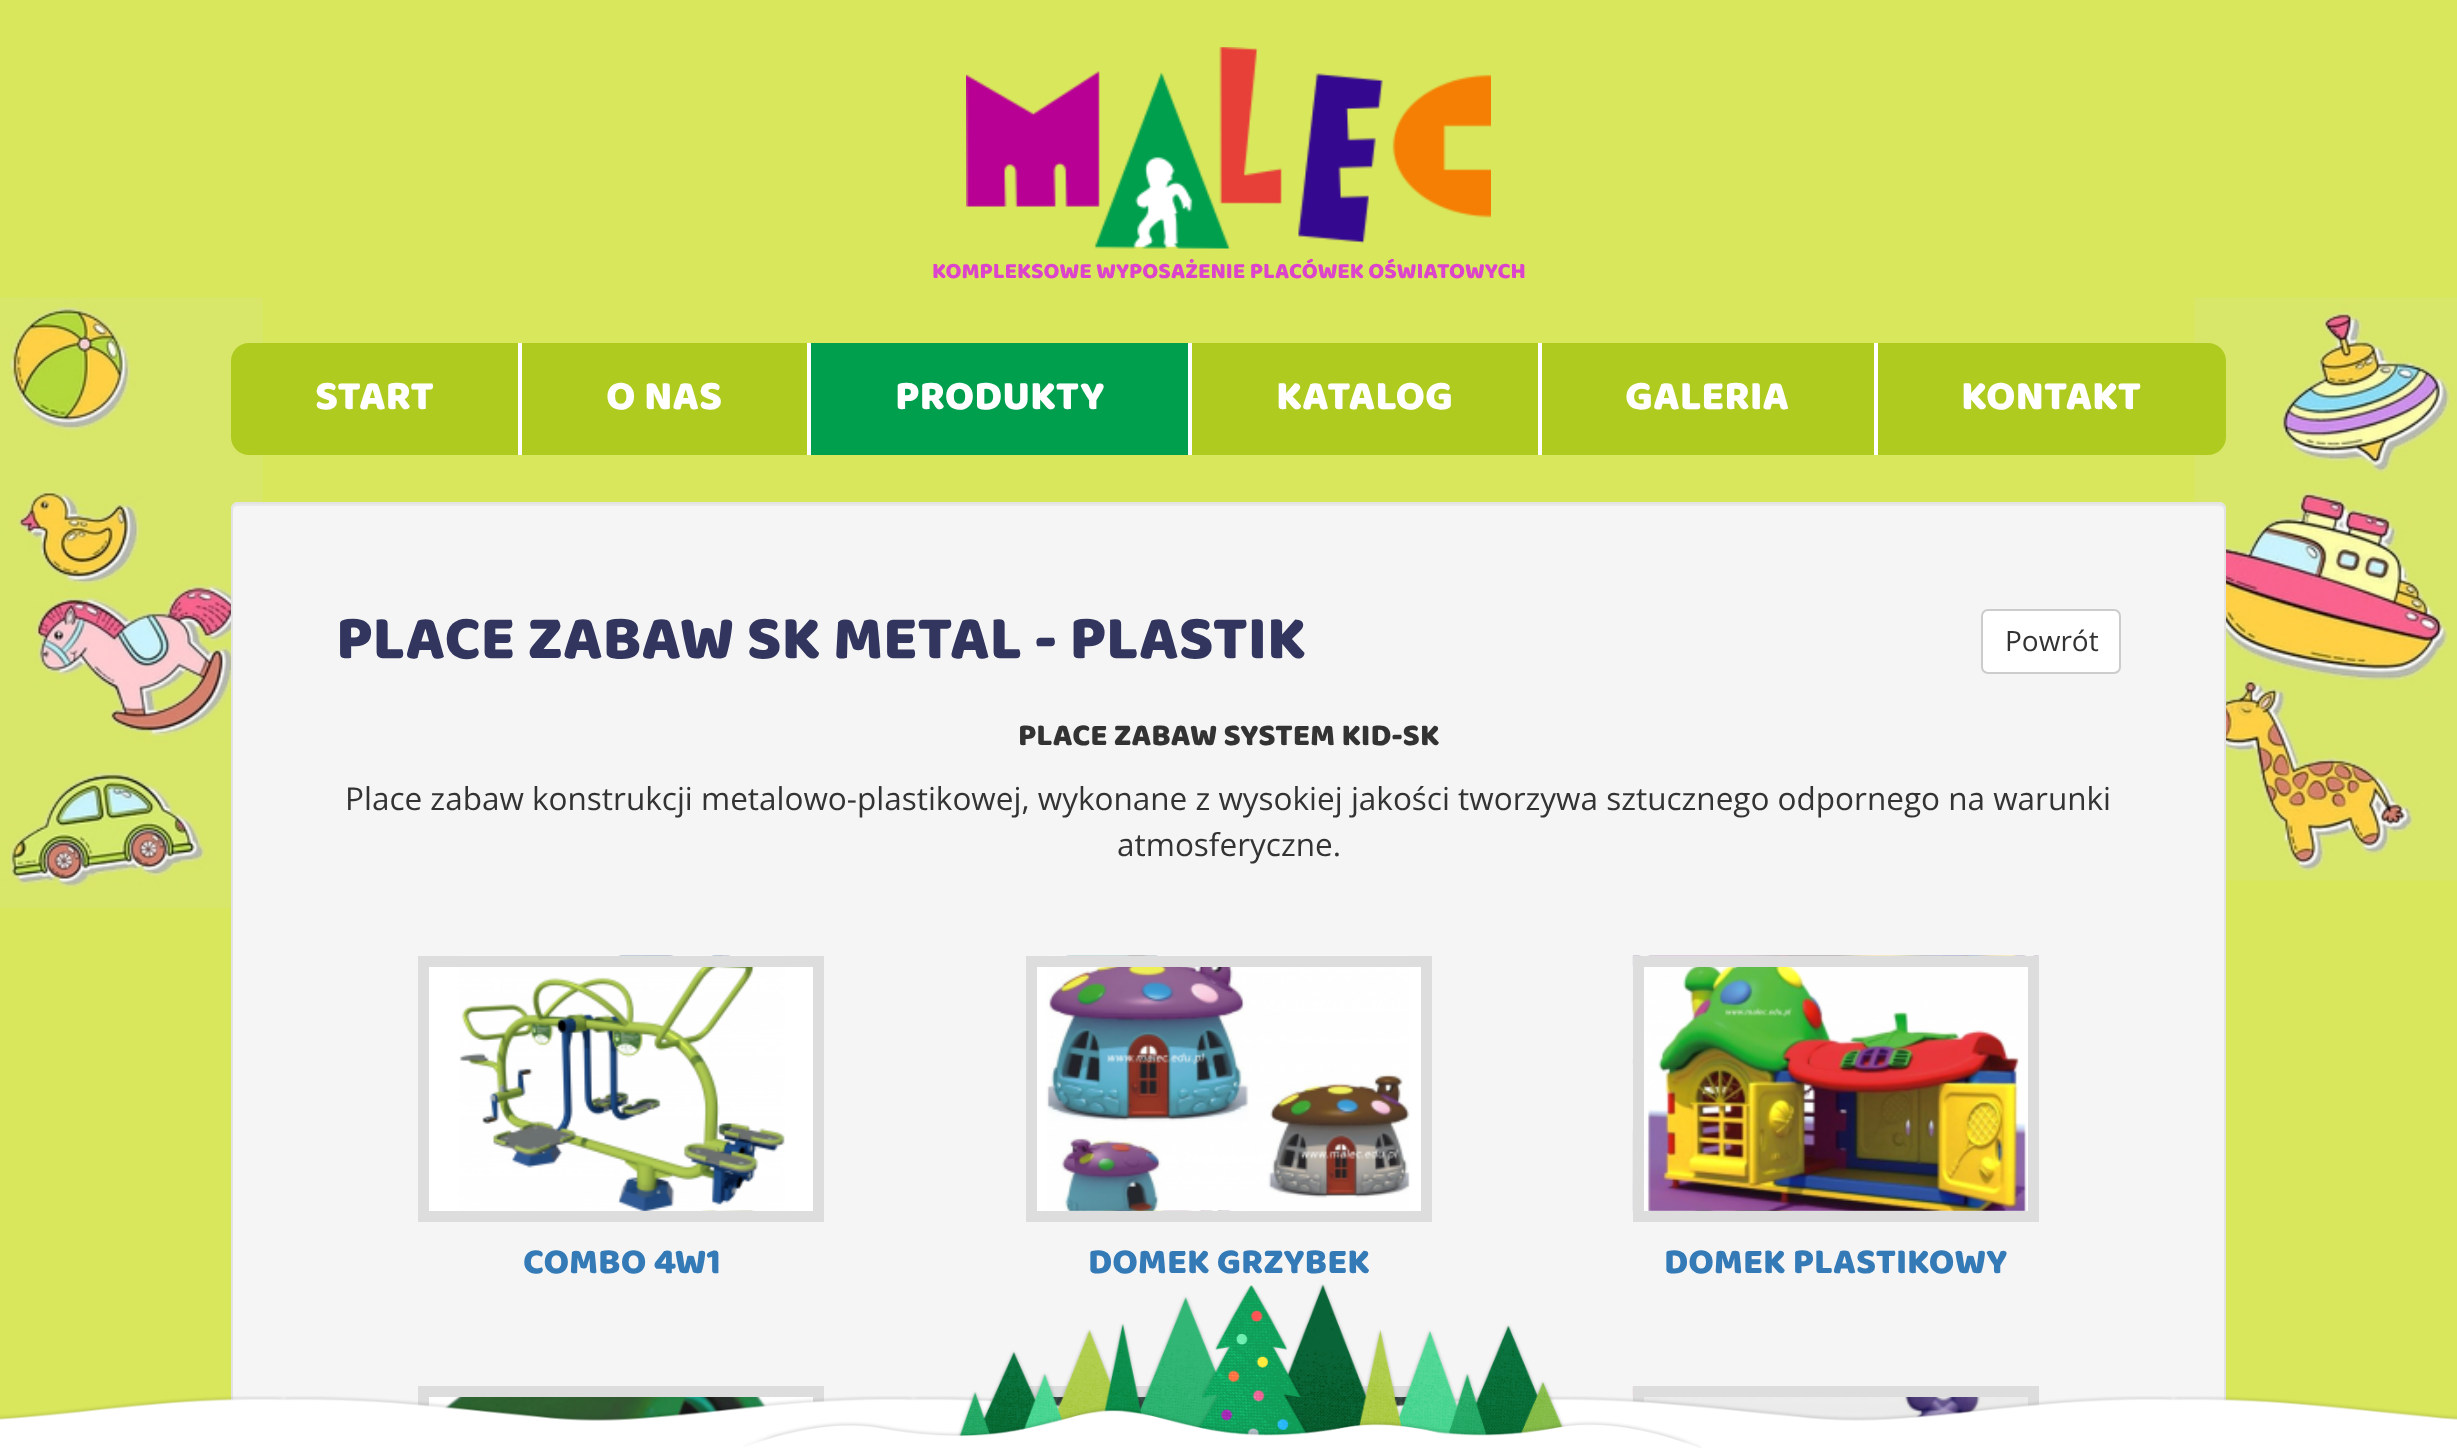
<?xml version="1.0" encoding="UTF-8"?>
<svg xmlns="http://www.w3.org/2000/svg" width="2457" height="1452">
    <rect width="100%" height="100%" fill="#D9E75C"/>
    <image x="0" y="297" width="2457" height="611" href="img_01.png"/>
    <image x="966" y="47" width="525" height="202" href="img_02.png"/>
    <text x="932" y="278" font-family="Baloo" font-size="22.75" fill="#DD44CC">KOMPLEKSOWE WYPOSAŻENIE PLACÓWEK OŚWIATOWYCH</text>
    <path d="M 249 343 H 520 V 455 H 249 C 239 455 231 447 231 437 V 361 C 231 351 239 343 249 343 Z" fill="#B0CB1F"/>
    <rect x="518" y="343" width="4" height="112" fill="#FFFFFF"/>
    <text x="315" y="409" font-family="Baloo" font-size="42" fill="#FFFFFF">START</text>
    <rect x="522" y="343" width="285" height="112" fill="#B0CB1F"/>
    <rect x="807" y="343" width="4" height="112" fill="#FFFFFF"/>
    <text x="606" y="409" font-family="Baloo" font-size="42" fill="#FFFFFF">O NAS</text>
    <rect x="811" y="343" width="377" height="112" fill="#009F4E"/>
    <rect x="1188" y="343" width="4" height="112" fill="#FFFFFF"/>
    <text x="895" y="409" font-family="Baloo" font-size="42" fill="#FFFFFF">PRODUKTY</text>
    <rect x="1192" y="343" width="346" height="112" fill="#B0CB1F"/>
    <rect x="1538" y="343" width="4" height="112" fill="#FFFFFF"/>
    <text x="1276" y="409" font-family="Baloo" font-size="42" fill="#FFFFFF">KATALOG</text>
    <rect x="1542" y="343" width="332" height="112" fill="#B0CB1F"/>
    <rect x="1874" y="343" width="2" height="112" fill="#FFFFFF"/>
    <text x="1625" y="409" font-family="Baloo" font-size="42" fill="#FFFFFF">GALERIA</text>
    <path d="M 1876 343 H 2208 C 2218 343 2226 351 2226 361 V 437 C 2226 447 2218 455 2208 455 H 1876 Z" fill="#B0CB1F"/>
    <rect x="1876" y="343" width="2" height="112" fill="#FFFFFF"/>
    <text x="1961" y="409" font-family="Baloo" font-size="42" fill="#FFFFFF">KONTAKT</text>
    <rect x="231" y="502" width="1995" height="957" rx="7" fill="#F5F5F5"/>
    <path d="M 238 506 H 2219 C 2222 506 2224 508 2224 511 V 509 C 2224 506 2222 504 2219 504 H 238 C 235 504 233 506 233 509 V 511 C 233 508 235 506 238 506 Z" fill="#E9E9E9"/>
    <rect x="232" y="503" width="1993" height="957" rx="6" fill="none" stroke="#E3E3E3" stroke-width="2"/>
    <text x="336" y="658" font-family="Baloo" font-size="63" fill="#32355D">PLACE ZABAW SK METAL - PLASTIK</text>
    <rect x="1982" y="610" width="138" height="63" rx="6" fill="#FFFFFF" stroke="#CCCCCC" stroke-width="2"/>
    <text x="2005" y="651" font-family="Open Sans" font-size="28" fill="#333333">Powrót</text>
    <text x="1018" y="745" font-family="Baloo" font-size="31.5" fill="#333333">PLACE ZABAW SYSTEM KID-SK</text>
    <text x="345" y="810" font-family="Open Sans" font-size="31.5" fill="#333333">Place zabaw konstrukcji metalowo-plastikowej, wykonane z wysokiej jakości tworzywa sztucznego odpornego na warunki</text>
    <text x="1117" y="856" font-family="Open Sans" font-size="31.5" fill="#333333">atmosferyczne.</text>
    <rect x="429" y="967" width="384" height="244" fill="#FFFFFF"/>
    <image x="459" y="955" width="326" height="256" href="img_03.png"/>
    <rect x="423.5" y="961.5" width="395" height="255" fill="none" stroke="#DDDDDD" stroke-width="11"/>
    <text x="523" y="1273" font-family="Baloo" font-size="36.5" fill="#337AB7">COMBO 4W1</text>
    <rect x="1037" y="967" width="384" height="244" fill="#FFFFFF"/>
    <image x="1046" y="955" width="364" height="256" href="img_04.png"/>
    <rect x="1031.5" y="961.5" width="395" height="255" fill="none" stroke="#DDDDDD" stroke-width="11"/>
    <text x="1088" y="1273" font-family="Baloo" font-size="36.5" fill="#337AB7">DOMEK GRZYBEK</text>
    <image x="1632" y="955" width="407" height="266" href="img_05.png"/>
    <rect x="1638.5" y="961.5" width="395" height="255" fill="none" stroke="#DDDDDD" stroke-width="11"/>
    <text x="1664" y="1273" font-family="Baloo" font-size="36.5" fill="#337AB7">DOMEK PLASTIKOWY</text>
    <image x="429" y="1386" width="396" height="35" href="img_06.png"/>
    <rect x="423.5" y="1391.5" width="395" height="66" fill="none" stroke="#DDDDDD" stroke-width="11"/>
    <image x="1052" y="1397" width="355" height="14" href="img_07.png"/>
    <rect x="1031.5" y="1391.5" width="395" height="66" fill="none" stroke="#DDDDDD" stroke-width="11"/>
    <image x="1632" y="1386" width="396" height="35" href="img_08.png"/>
    <rect x="1638.5" y="1391.5" width="395" height="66" fill="none" stroke="#DDDDDD" stroke-width="11"/>
    <image x="0" y="1396" width="2457" height="56" href="img_09.png"/>
    <image x="743" y="1284" width="959" height="164" href="img_10.png"/>
</svg>
